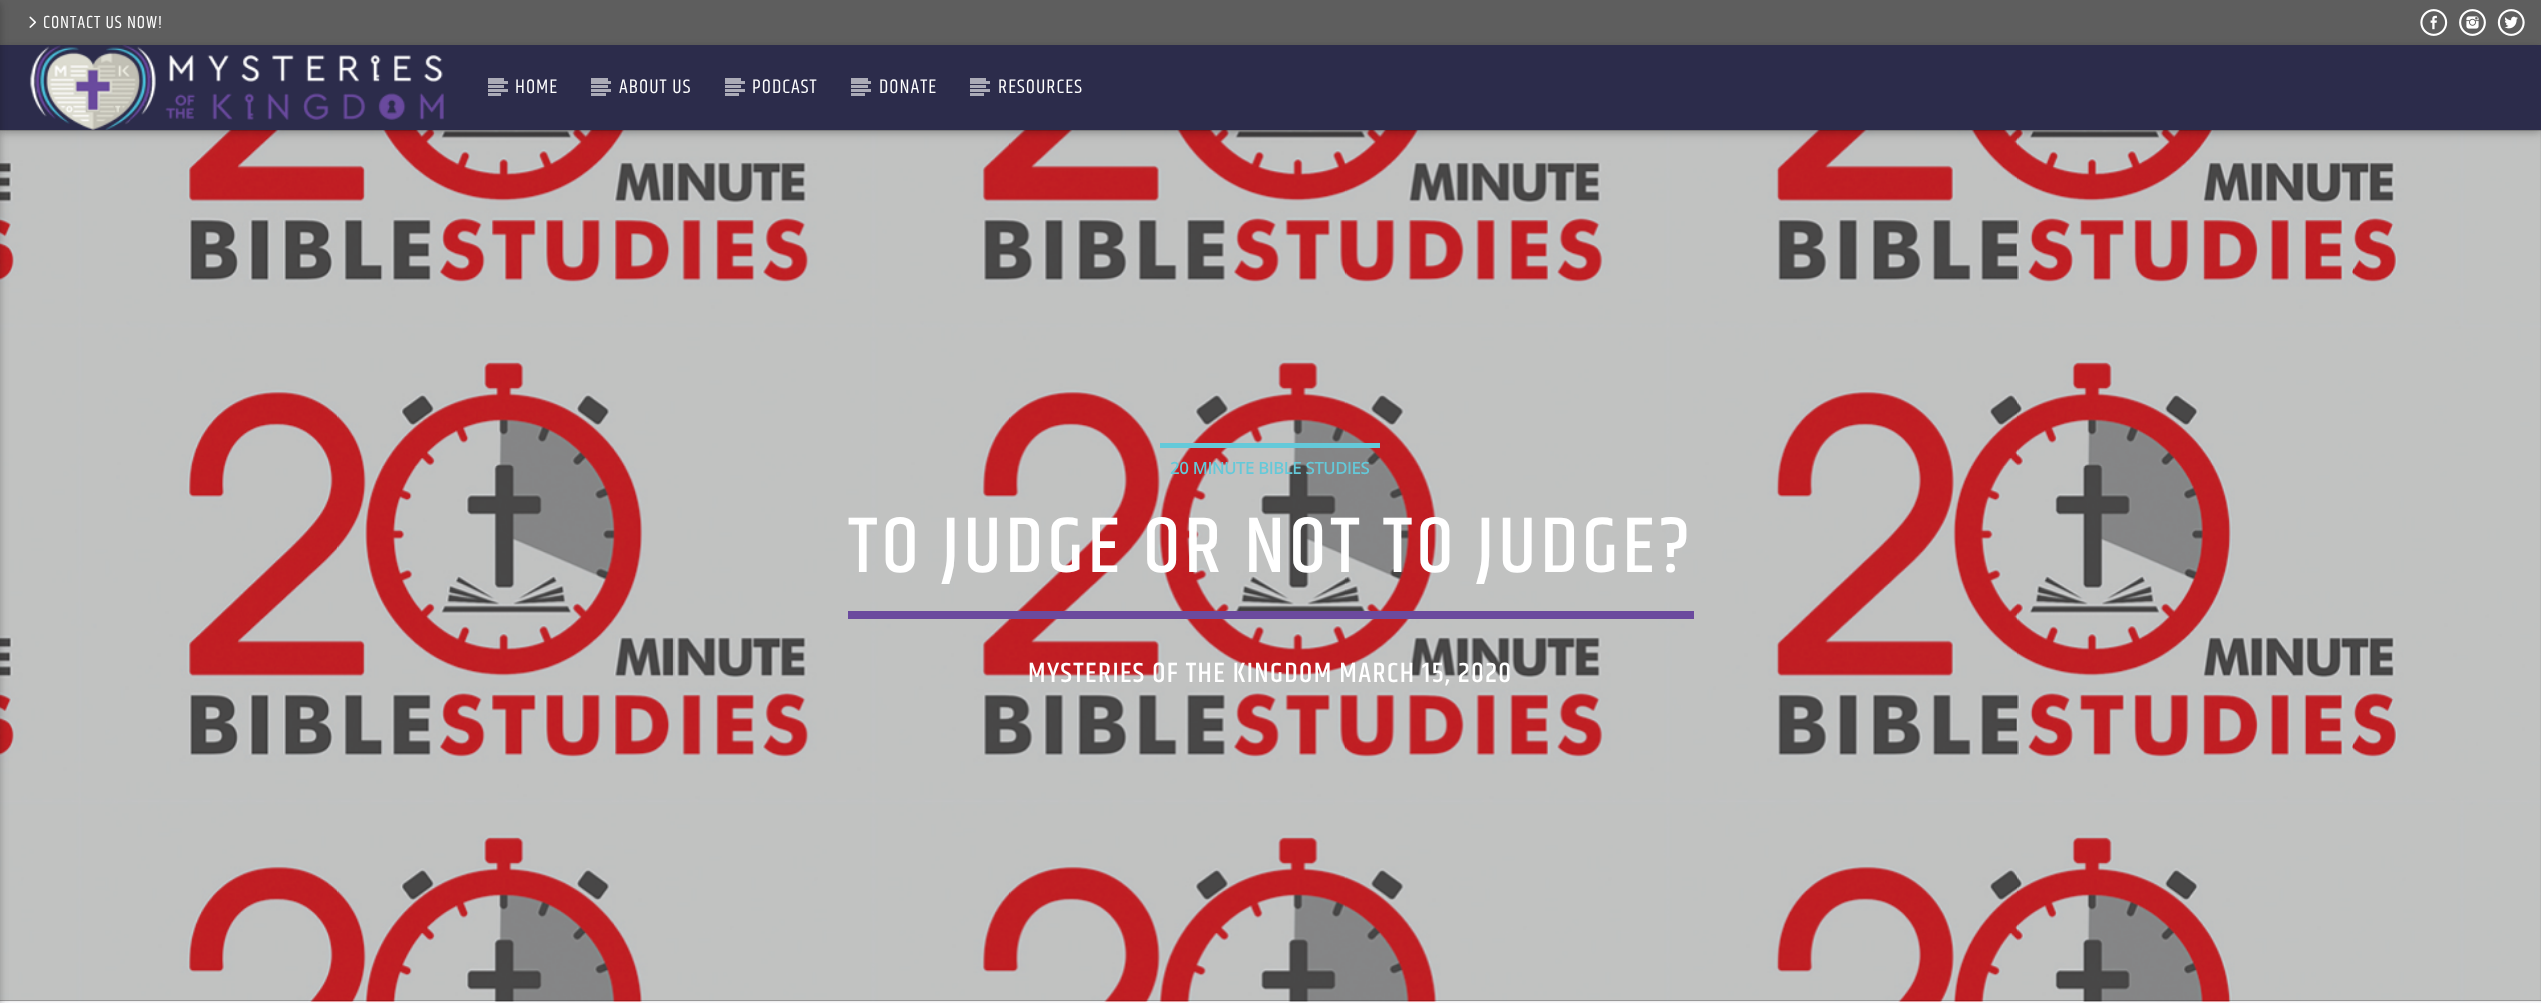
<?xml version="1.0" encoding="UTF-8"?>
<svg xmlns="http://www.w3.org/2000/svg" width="2541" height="1003">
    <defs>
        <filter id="blur1" x="-50%" y="-200%" width="200%" height="500%"><feGaussianBlur stdDeviation="6"/></filter>
        <filter id="blur2" x="-50%" y="-200%" width="200%" height="500%"><feGaussianBlur stdDeviation="3"/></filter>
    </defs>
    <rect width="100%" height="100%" fill="#F7F7F9"/>
    <rect x="0" y="0" width="2541" height="45" fill="#5E5E5E"/>
    <image x="2420" y="9" width="28" height="27" href="img_02.png"/>
    <image x="2459" y="9" width="27" height="27" href="img_03.png"/>
    <image x="2497" y="9" width="28" height="27" href="img_04.png"/>
    <rect x="0" y="130" width="2541" height="871" fill="#000000"/>
    <image x="0" y="130" width="2541" height="872" href="img_06.png"/>
    <rect x="0" y="48" width="2541" height="85" fill="#000000" fill-opacity="0.12" filter="url(#blur1)"/>
    <rect x="0" y="48" width="2541" height="85" fill="#000000" fill-opacity="0.16" filter="url(#blur2)"/>
    <rect x="0" y="45" width="2541" height="85" fill="#2C2C4B"/>
    <rect x="-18" y="3" width="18" height="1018" fill="#000000" fill-opacity="0.12" filter="url(#blur1)"/>
    <rect x="-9" y="3" width="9" height="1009" fill="#000000" fill-opacity="0.16" filter="url(#blur2)"/>
    <image x="29" y="16" width="7" height="12" href="img_01.png"/>
    <text x="43" y="28" font-family="Khand" font-size="18" letter-spacing="0.9" fill="#FFFFFF">CONTACT US NOW!</text>
    <image x="29" y="45" width="415" height="85" href="img_05.png"/>
    <rect x="488" y="78" width="16" height="3" fill="#ABABB7"/>
    <rect x="488" y="85" width="16" height="3" fill="#ABABB7"/>
    <text x="515" y="93" font-family="Khand" font-size="20" letter-spacing="1" fill="#FFFFFF">HOME</text>
    <rect x="488" y="81" width="20" height="3" fill="#ABABB7"/>
    <rect x="488" y="89" width="20" height="3" fill="#ABABB7"/>
    <rect x="488" y="93" width="13" height="3" fill="#ABABB7"/>
    <rect x="591" y="78" width="17" height="3" fill="#ABABB7"/>
    <rect x="591" y="85" width="17" height="3" fill="#ABABB7"/>
    <text x="619" y="93" font-family="Khand" font-size="20" letter-spacing="1" fill="#FFFFFF">ABOUT US</text>
    <rect x="591" y="81" width="20" height="3" fill="#ABABB7"/>
    <rect x="591" y="89" width="20" height="3" fill="#ABABB7"/>
    <rect x="591" y="93" width="15" height="3" fill="#ABABB7"/>
    <rect x="725" y="78" width="16" height="3" fill="#ABABB7"/>
    <rect x="725" y="85" width="16" height="3" fill="#ABABB7"/>
    <text x="752" y="93" font-family="Khand" font-size="20" letter-spacing="1" fill="#FFFFFF">PODCAST</text>
    <rect x="725" y="81" width="20" height="3" fill="#ABABB7"/>
    <rect x="725" y="89" width="20" height="3" fill="#ABABB7"/>
    <rect x="725" y="93" width="14" height="3" fill="#ABABB7"/>
    <rect x="851" y="78" width="17" height="3" fill="#ABABB7"/>
    <rect x="851" y="85" width="17" height="3" fill="#ABABB7"/>
    <text x="879" y="93" font-family="Khand" font-size="20" letter-spacing="1" fill="#FFFFFF">DONATE</text>
    <rect x="851" y="81" width="20" height="3" fill="#ABABB7"/>
    <rect x="851" y="89" width="20" height="3" fill="#ABABB7"/>
    <rect x="851" y="93" width="14" height="3" fill="#ABABB7"/>
    <rect x="970" y="78" width="16" height="3" fill="#ABABB7"/>
    <rect x="970" y="85" width="16" height="3" fill="#ABABB7"/>
    <text x="998" y="93" font-family="Khand" font-size="20" letter-spacing="1" fill="#FFFFFF">RESOURCES</text>
    <rect x="970" y="81" width="20" height="3" fill="#ABABB7"/>
    <rect x="970" y="89" width="20" height="3" fill="#ABABB7"/>
    <rect x="970" y="93" width="14" height="3" fill="#ABABB7"/>
    <rect x="1160" y="443" width="220" height="5" fill="#64C9D9"/>
    <text x="1170" y="474" font-family="Open Sans" font-size="16.25" font-weight="700" fill="#64C9D9">20 MINUTE BIBLE STUDIES</text>
    <rect x="848" y="611" width="846" height="8" fill="#6B4A9E"/>
    <text x="848" y="572" font-family="Khand" font-size="80" font-weight="500" letter-spacing="4" fill="#FFFFFF">TO JUDGE OR NOT TO JUDGE?</text>
    <text x="1028" y="682" font-family="Khand" font-size="28.25" font-weight="500" letter-spacing="1.4" fill="#FFFFFF">MYSTERIES OF THE KINGDOM MARCH 15, 2020</text>
</svg>
